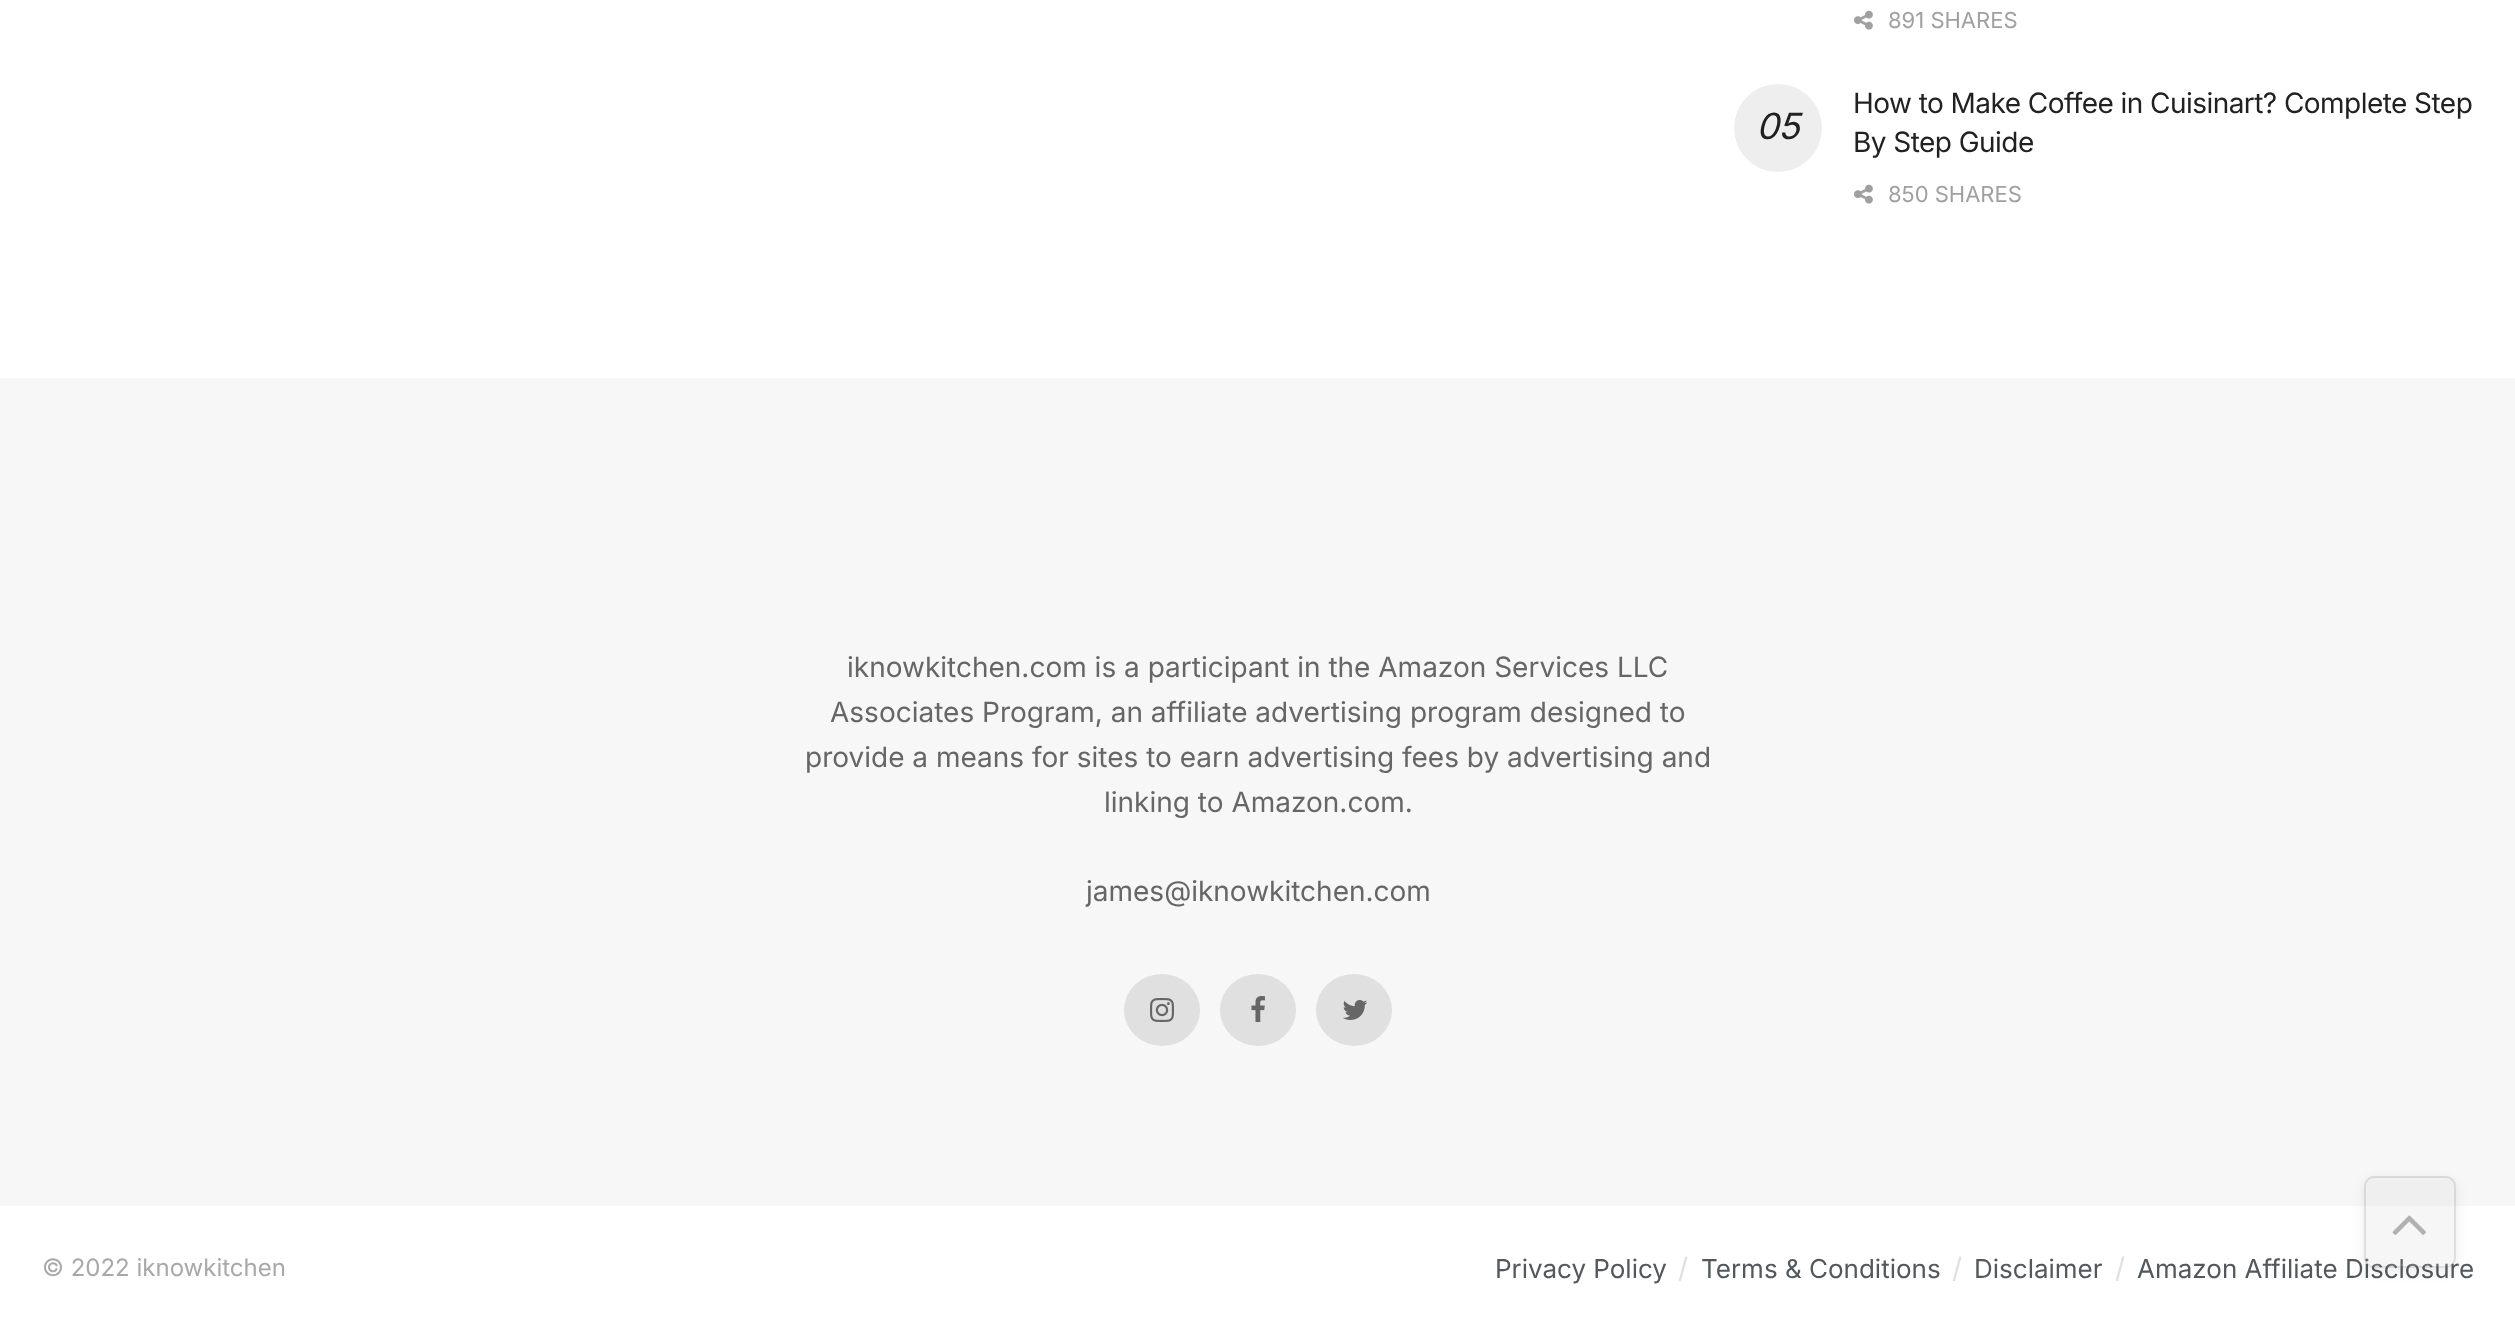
<?xml version="1.0" encoding="UTF-8"?>
<svg xmlns="http://www.w3.org/2000/svg" width="2515" height="1327">
    <defs>
        <clipPath id="clip1"><path d="M 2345 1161 H 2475 V 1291 H 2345 Z M 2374 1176 H 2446 C 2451.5 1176 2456 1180.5 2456 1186 V 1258 C 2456 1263.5 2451.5 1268 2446 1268 H 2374 C 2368.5 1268 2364 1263.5 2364 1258 V 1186 C 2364 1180.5 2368.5 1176 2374 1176 Z" clip-rule="evenodd"/></clipPath>
        <filter id="blur1" x="-50%" y="-200%" width="200%" height="500%"><feGaussianBlur stdDeviation="6"/></filter>
    </defs>
    <rect width="100%" height="100%" fill="#FFFFFF"/>
    <image x="1854" y="10" width="19" height="20" href="img_01.png"/>
    <text x="1888" y="28" font-family="Inter" font-size="22" fill="#A0A0A0">891 SHARES</text>
    <text x="1853" y="113" font-family="Inter" font-size="28" letter-spacing="-0.55" fill="#212121">How to Make Coffee in Cuisinart? Complete Step</text>
    <circle cx="1778" cy="128" r="44" fill="#EEEEEE"/>
    <text x="1756" y="139" font-family="Inter" font-size="36" font-style="italic" letter-spacing="-0.55" fill="#212121">05</text>
    <text x="1853" y="152" font-family="Inter" font-size="28" letter-spacing="-0.55" fill="#212121">By Step Guide</text>
    <image x="1854" y="184" width="19" height="20" href="img_01.png"/>
    <text x="1888" y="202" font-family="Inter" font-size="22" fill="#A0A0A0">850 SHARES</text>
    <rect x="0" y="378" width="2515" height="828" fill="#F7F7F7"/>
    <text x="847" y="677" font-family="Inter" font-size="28" fill="#666666">iknowkitchen.com is a participant in the Amazon Services LLC</text>
    <text x="830" y="722" font-family="Inter" font-size="28" fill="#666666">Associates Program, an affiliate advertising program designed to</text>
    <text x="805" y="767" font-family="Inter" font-size="28" fill="#666666">provide a means for sites to earn advertising fees by advertising and</text>
    <text x="1104" y="812" font-family="Inter" font-size="28" fill="#666666">linking to Amazon.com.</text>
    <text x="1086" y="901" font-family="Inter" font-size="28" fill="#666666">james@iknowkitchen.com</text>
    <ellipse cx="1162" cy="1010" rx="38" ry="36" fill="#E0E0E0"/>
    <image x="1150" y="998" width="24" height="24" href="img_02.png"/>
    <ellipse cx="1258" cy="1010" rx="38" ry="36" fill="#E0E0E0"/>
    <image x="1251" y="996" width="14" height="26" href="img_03.png"/>
    <ellipse cx="1354" cy="1010" rx="38" ry="36" fill="#E0E0E0"/>
    <image x="1343" y="1000" width="25" height="20" href="img_04.png"/>
    <text x="42" y="1276" font-family="Inter" font-size="24" fill="#A8A8AA">© 2022 iknowkitchen</text>
    <text x="1495" y="1278" font-family="Inter" font-size="26" fill="#53585C">Privacy Policy</text>
    <text x="1678" y="1278" font-family="Inter" font-size="28" fill="#E0E0E0">/</text>
    <text x="1701" y="1278" font-family="Inter" font-size="26" fill="#53585C">Terms &amp; Conditions</text>
    <text x="1952" y="1278" font-family="Inter" font-size="28" fill="#E0E0E0">/</text>
    <text x="1974" y="1278" font-family="Inter" font-size="26" fill="#53585C">Disclaimer</text>
    <text x="2115" y="1278" font-family="Inter" font-size="28" fill="#E0E0E0">/</text>
    <text x="2137" y="1278" font-family="Inter" font-size="26" fill="#53585C">Amazon Affiliate Disclosure</text>
    <g clip-path="url(#clip1)">
        <rect x="2364" y="1180" width="92" height="92" rx="10" fill="#000000" fill-opacity="0.08" filter="url(#blur1)"/>
    </g>
    <rect x="2364" y="1176" width="92" height="92" rx="10" fill="#B4B4B4" fill-opacity="0.12"/>
    <rect x="2367" y="1179" width="86" height="86" rx="7" fill="none" stroke="#FFFFFF" stroke-opacity="0.08" stroke-width="2"/>
    <rect x="2365" y="1177" width="90" height="90" rx="9" fill="none" stroke="#000000" stroke-opacity="0.09" stroke-width="2"/>
    <image x="2392" y="1215" width="34" height="20" href="img_05.png"/>
</svg>
